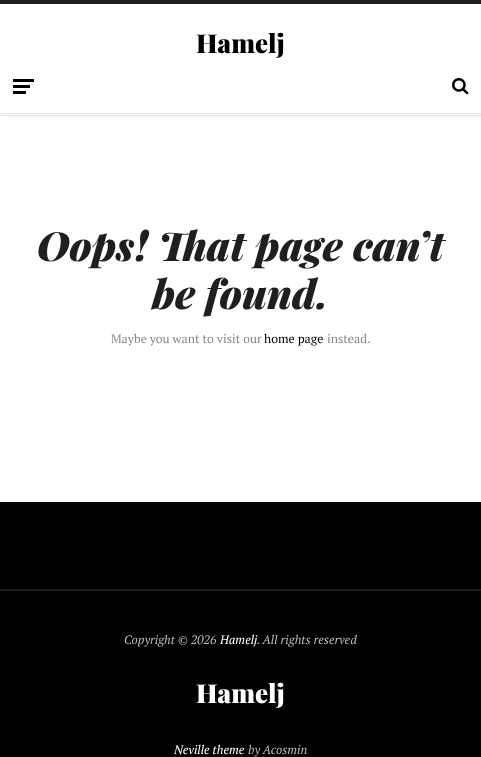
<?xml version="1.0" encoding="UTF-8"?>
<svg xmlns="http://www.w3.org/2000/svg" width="481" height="757">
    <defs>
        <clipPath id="clip1"><path d="M 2 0 H 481 V 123 H 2 Z M 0 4 H 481 V 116 H 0 Z" clip-rule="evenodd"/></clipPath>
        <filter id="blur1" x="-50%" y="-200%" width="200%" height="500%"><feGaussianBlur stdDeviation="2"/></filter>
    </defs>
    <rect width="100%" height="100%" fill="#FFFFFF"/>
    <rect x="0" y="0" width="481" height="4" fill="#1F1F1F"/>
    <g clip-path="url(#clip1)">
        <rect x="9" y="4" width="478" height="112" fill="#000000" fill-opacity="0.1" filter="url(#blur1)"/>
    </g>
    <rect x="0" y="113" width="481" height="1" fill="#E8E8E8"/>
    <rect x="0" y="115" width="481" height="1" fill="#E8E8E8"/>
    <text x="196" y="53" font-family="Playfair Display" font-size="26" font-weight="900" fill="#000000">Hamelj</text>
    <rect x="13" y="79" width="21" height="3" fill="#000000"/>
    <rect x="13" y="85" width="17" height="3" fill="#000000"/>
    <rect x="13" y="91" width="13" height="3" fill="#000000"/>
    <image x="452" y="78" width="17" height="17" href="img_01.png"/>
    <text x="37" y="261" font-family="Playfair Display" font-size="40.25" font-weight="900" font-style="italic" fill="#1F1F1F">Oops! That page can’t</text>
    <text x="152" y="309" font-family="Playfair Display" font-size="40.25" font-weight="900" font-style="italic" fill="#1F1F1F">be found.</text>
    <text x="111" y="343" font-family="PT Serif" font-size="12.25" fill="#888888">Maybe you want to visit our</text>
    <text x="264" y="343" font-family="PT Serif" font-size="12.25" fill="#000000">home page</text>
    <text x="327" y="343" font-family="PT Serif" font-size="12.25" fill="#888888">instead.</text>
    <rect x="0" y="502" width="481" height="255" fill="#000000"/>
    <rect x="0" y="589" width="481" height="2" fill="#1F1F1F"/>
    <text x="124" y="644" font-family="PT Serif" font-size="12.25" font-style="italic" fill="#BBBBBB">Copyright © 2026</text>
    <text x="220" y="644" font-family="PT Serif" font-size="12.25" font-style="italic" fill="#FFFFFF">Hamelj</text>
    <text x="257" y="644" font-family="PT Serif" font-size="12.25" font-style="italic" fill="#BBBBBB">. All rights reserved</text>
    <text x="196" y="703" font-family="Playfair Display" font-size="26" font-weight="900" fill="#FFFFFF">Hamelj</text>
    <text x="174" y="754" font-family="PT Serif" font-size="12.25" font-style="italic" fill="#FFFFFF">Neville theme</text>
    <text x="248" y="754" font-family="PT Serif" font-size="12.25" font-style="italic" fill="#BBBBBB">by Acosmin</text>
</svg>
